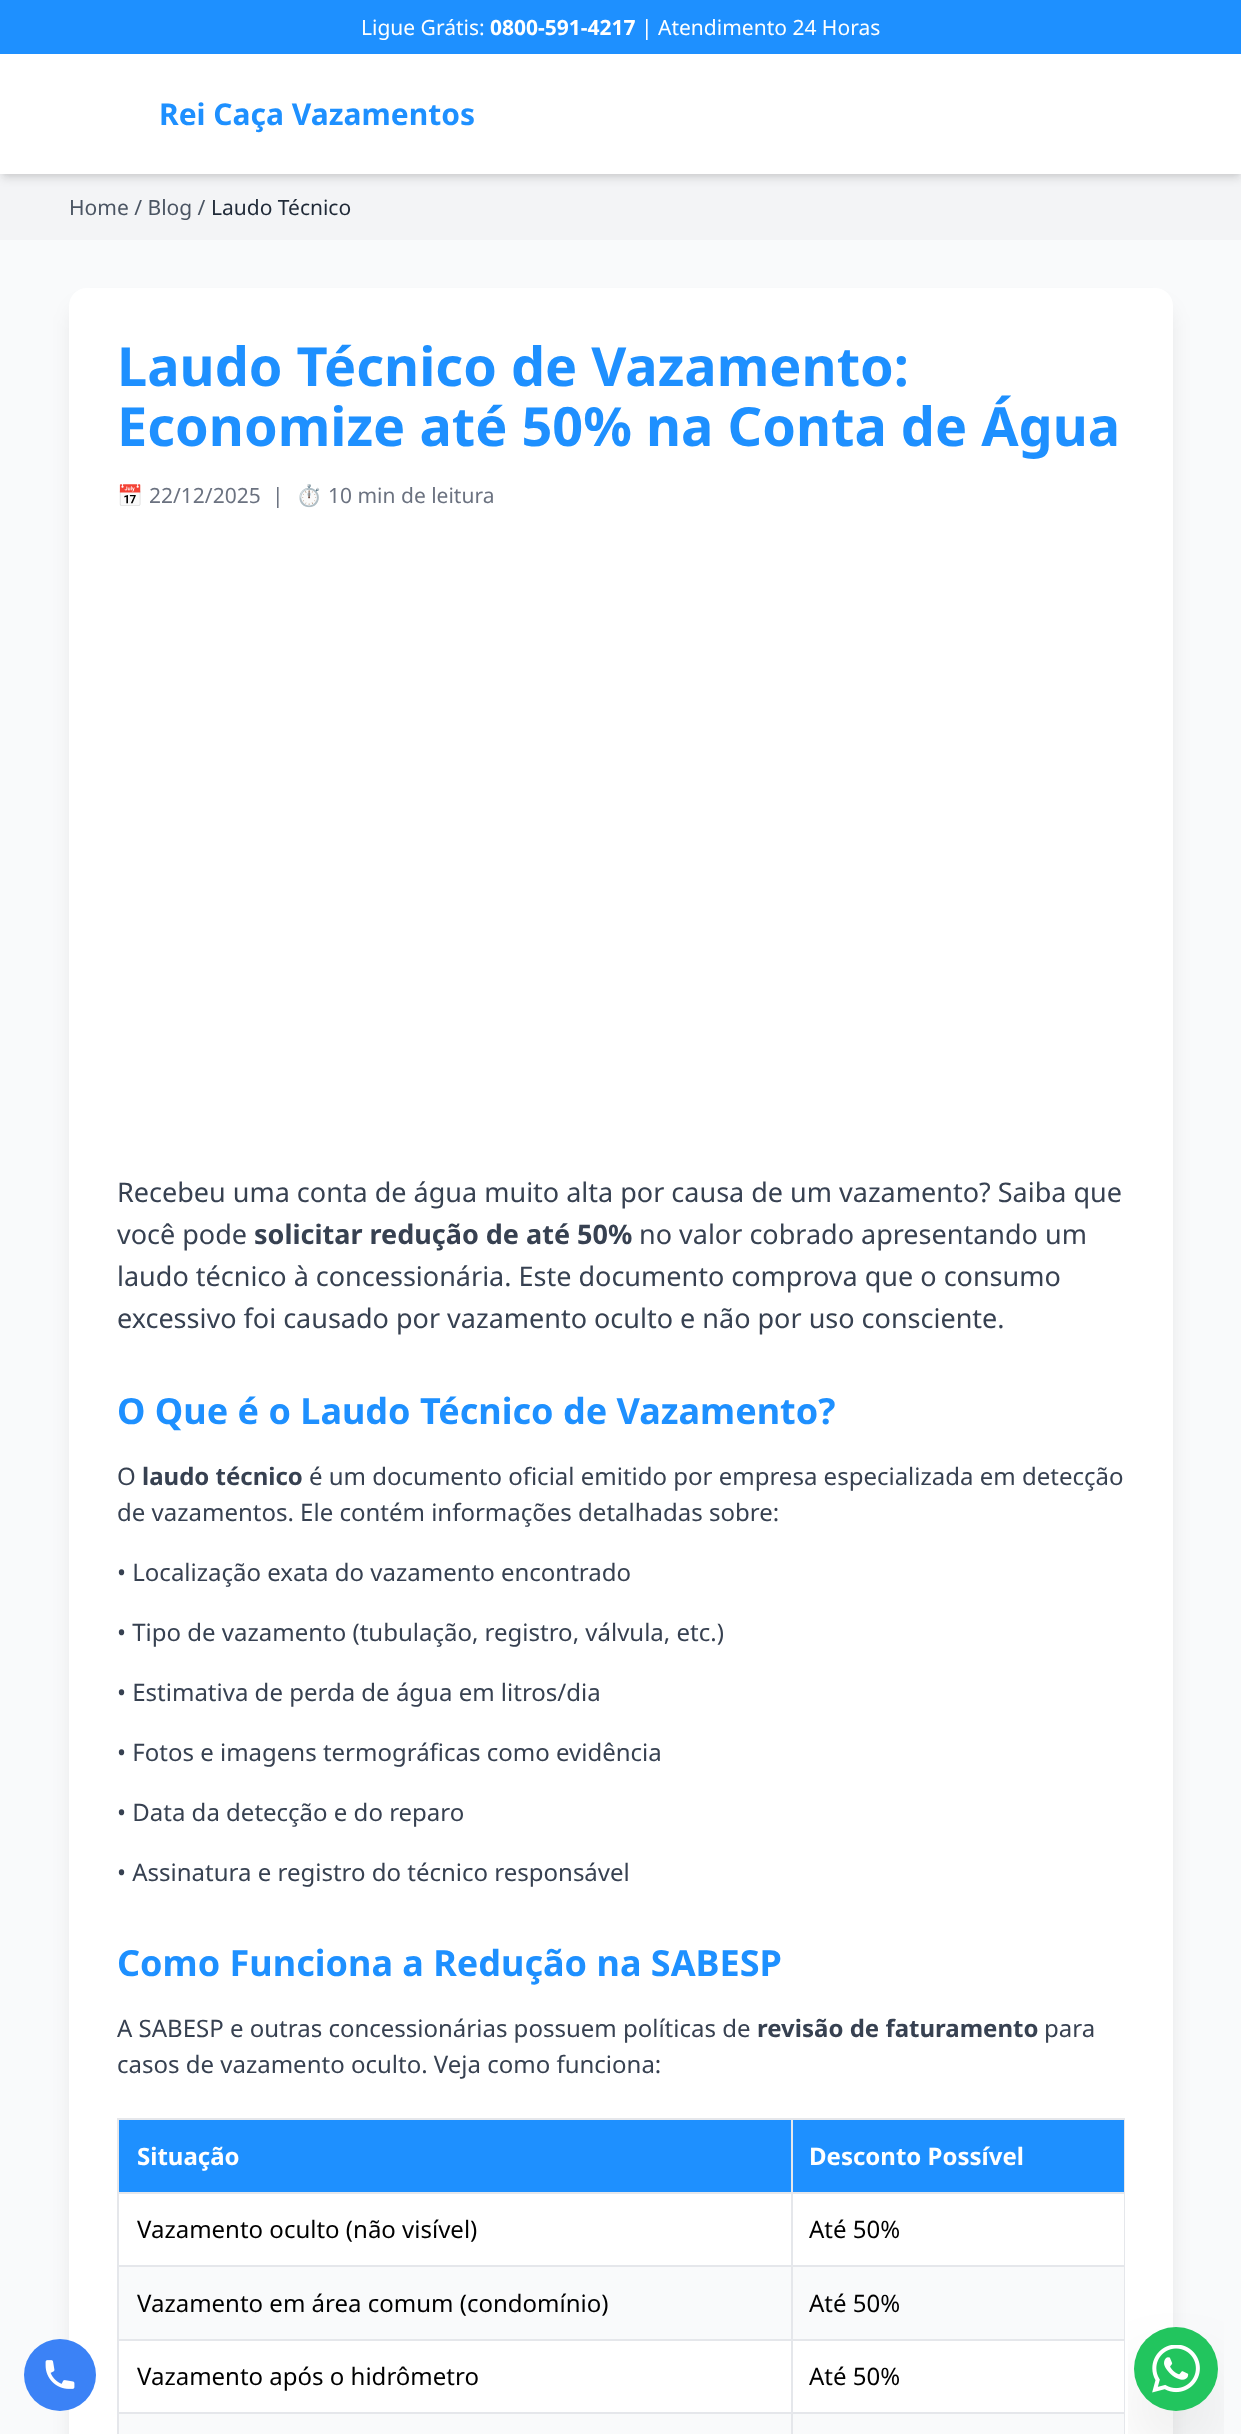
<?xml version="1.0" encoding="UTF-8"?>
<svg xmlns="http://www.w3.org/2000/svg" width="1241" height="2434">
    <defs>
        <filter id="blur1" x="-50%" y="-200%" width="200%" height="500%"><feGaussianBlur stdDeviation="3"/></filter>
        <filter id="blur2" x="-50%" y="-200%" width="200%" height="500%"><feGaussianBlur stdDeviation="4.5"/></filter>
        <filter id="blur3" x="-50%" y="-200%" width="200%" height="500%"><feGaussianBlur stdDeviation="11"/></filter>
        <filter id="blur4" x="-50%" y="-200%" width="200%" height="500%"><feGaussianBlur stdDeviation="37.5"/></filter>
    </defs>
    <rect width="100%" height="100%" fill="#F9FAFB"/>
    <rect x="0" y="174" width="1241" height="66" fill="#F3F4F6"/>
    <rect x="3" y="6" width="1236" height="168" fill="#000000" fill-opacity="0.1" filter="url(#blur1)"/>
    <rect x="2" y="8" width="1239" height="171" fill="#000000" fill-opacity="0.1" filter="url(#blur2)"/>
    <rect x="0" y="54" width="1241" height="120" fill="#FFFFFF"/>
    <rect x="0" y="0" width="1241" height="54" fill="#1E90FF"/>
    <text x="361" y="35" font-family="Noto Sans" font-size="21" fill="#FFFFFF">Ligue Grátis:</text>
    <text x="490" y="35" font-family="Noto Sans" font-size="21" font-weight="700" fill="#FFFFFF">0800-591-4217</text>
    <text x="641" y="35" font-family="Noto Sans" font-size="21" fill="#FFFFFF">| Atendimento 24 Horas</text>
    <text x="159" y="125" font-family="Noto Sans" font-size="30" font-weight="700" fill="#1E90FF">Rei Caça Vazamentos</text>
    <text x="69" y="215" font-family="Noto Sans" font-size="21" fill="#4B5563">Home / Blog /</text>
    <text x="211" y="215" font-family="Noto Sans" font-size="21" fill="#1F2937">Laudo Técnico</text>
    <rect x="74" y="308" width="1095" height="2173" rx="14" fill="#000000" fill-opacity="0.1" filter="url(#blur3)"/>
    <rect x="69" y="288" width="1104" height="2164" rx="18" fill="#FFFFFF"/>
    <circle cx="60" cy="2375" r="36" fill="#3B82F6"/>
    <image x="45" y="2360" width="30" height="29" href="img_01.png"/>
    <text font-family="Noto Sans" font-size="54" font-weight="700" fill="#1E90FF">
        <tspan x="117" y="386">Laudo Técnico de Vazamento:</tspan>
        <tspan x="117" y="446">Economize até 50% na Conta de Água</tspan>
    </text>
    <text x="117" y="503" font-family="Noto Color Emoji" font-size="21" fill="#6B7280">📅</text>
    <text x="149" y="503" font-family="Noto Sans" font-size="21" fill="#6B7280">22/12/2025</text>
    <text x="272" y="503" font-family="Noto Sans" font-size="21" fill="#6B7280">|</text>
    <text x="296" y="503" font-family="Noto Color Emoji" font-size="21" fill="#6B7280">⏱️</text>
    <text x="328" y="503" font-family="Noto Sans" font-size="21" fill="#6B7280">10 min de leitura</text>
    <text font-family="Noto Sans" font-size="27" fill="#374151">
        <tspan x="117" y="1202">Recebeu uma conta de água muito alta por causa de um vazamento? Saiba que</tspan>
        <tspan x="117" y="1244">você pode</tspan>
    </text>
    <text x="254" y="1244" font-family="Noto Sans" font-size="27" font-weight="700" fill="#374151">solicitar redução de até 50%</text>
    <text x="639" y="1244" font-family="Noto Sans" font-size="27" fill="#374151">no valor cobrado apresentando um</text>
    <text font-family="Noto Sans" font-size="27" fill="#374151">
        <tspan x="117" y="1286">laudo técnico à concessionária. Este documento comprova que o consumo</tspan>
        <tspan x="117" y="1328">excessivo foi causado por vazamento oculto e não por uso consciente.</tspan>
    </text>
    <text x="117" y="1424" font-family="Noto Sans" font-size="36" font-weight="700" fill="#1E90FF">O Que é o Laudo Técnico de Vazamento?</text>
    <text x="117" y="1485" font-family="Noto Sans" font-size="24" fill="#374151">O</text>
    <text x="142" y="1485" font-family="Noto Sans" font-size="24" font-weight="700" fill="#374151">laudo técnico</text>
    <text x="309" y="1485" font-family="Noto Sans" font-size="24" fill="#374151">é um documento oficial emitido por empresa especializada em detecção</text>
    <text x="117" y="1521" font-family="Noto Sans" font-size="24" fill="#374151">de vazamentos. Ele contém informações detalhadas sobre:</text>
    <text x="117" y="1581" font-family="Noto Sans" font-size="24" fill="#374151">• Localização exata do vazamento encontrado</text>
    <text x="117" y="1641" font-family="Noto Sans" font-size="24" fill="#374151">• Tipo de vazamento (tubulação, registro, válvula, etc.)</text>
    <text x="117" y="1701" font-family="Noto Sans" font-size="24" fill="#374151">• Estimativa de perda de água em litros/dia</text>
    <text x="117" y="1761" font-family="Noto Sans" font-size="24" fill="#374151">• Fotos e imagens termográficas como evidência</text>
    <text x="117" y="1821" font-family="Noto Sans" font-size="24" fill="#374151">• Data da detecção e do reparo</text>
    <text x="117" y="1881" font-family="Noto Sans" font-size="24" fill="#374151">• Assinatura e registro do técnico responsável</text>
    <text x="117" y="1976" font-family="Noto Sans" font-size="36" font-weight="700" fill="#1E90FF">Como Funciona a Redução na SABESP</text>
    <text x="117" y="2037" font-family="Noto Sans" font-size="24" fill="#374151">A SABESP e outras concessionárias possuem políticas de</text>
    <text x="757" y="2037" font-family="Noto Sans" font-size="24" font-weight="700" fill="#374151">revisão de faturamento</text>
    <text x="1044" y="2037" font-family="Noto Sans" font-size="24" fill="#374151">para</text>
    <text x="117" y="2073" font-family="Noto Sans" font-size="24" fill="#374151">casos de vazamento oculto. Veja como funciona:</text>
    <rect x="119" y="2120" width="1005" height="72" fill="#1E90FF"/>
    <rect x="791" y="2118" width="334" height="2" fill="#E5E7EB"/>
    <rect x="791" y="2192" width="334" height="2" fill="#E5E7EB"/>
    <rect x="791" y="2265" width="334" height="2" fill="#E5E7EB"/>
    <rect x="119" y="2267" width="1005" height="72" fill="#F9FAFB"/>
    <rect x="791" y="2339" width="334" height="2" fill="#E5E7EB"/>
    <rect x="791" y="2412" width="334" height="2" fill="#E5E7EB"/>
    <rect x="119" y="2414" width="1005" height="20" fill="#F9FAFB"/>
    <rect x="791" y="2412" width="2" height="22" fill="#E5E7EB"/>
    <rect x="117" y="2412" width="675" height="2" fill="#E5E7EB"/>
    <rect x="791" y="2339" width="2" height="75" fill="#E5E7EB"/>
    <rect x="117" y="2339" width="675" height="2" fill="#E5E7EB"/>
    <rect x="791" y="2265" width="2" height="75" fill="#E5E7EB"/>
    <rect x="117" y="2265" width="675" height="2" fill="#E5E7EB"/>
    <rect x="791" y="2192" width="2" height="75" fill="#E5E7EB"/>
    <rect x="117" y="2192" width="675" height="2" fill="#E5E7EB"/>
    <rect x="791" y="2118" width="2" height="75" fill="#E5E7EB"/>
    <rect x="117" y="2118" width="675" height="2" fill="#E5E7EB"/>
    <rect x="117" y="2412" width="2" height="22" fill="#E5E7EB"/>
    <rect x="117" y="2339" width="2" height="75" fill="#E5E7EB"/>
    <rect x="117" y="2265" width="2" height="75" fill="#E5E7EB"/>
    <rect x="117" y="2192" width="2" height="75" fill="#E5E7EB"/>
    <rect x="117" y="2118" width="2" height="75" fill="#E5E7EB"/>
    <text x="137" y="2165" font-family="Noto Sans" font-size="24" font-weight="700" fill="#FFFFFF">Situação</text>
    <rect x="1124" y="2412" width="1" height="22" fill="#E5E7EB"/>
    <rect x="1124" y="2339" width="1" height="75" fill="#E5E7EB"/>
    <rect x="1124" y="2265" width="1" height="75" fill="#E5E7EB"/>
    <rect x="1124" y="2192" width="1" height="75" fill="#E5E7EB"/>
    <rect x="1124" y="2118" width="1" height="75" fill="#E5E7EB"/>
    <text x="809" y="2165" font-family="Noto Sans" font-size="24" font-weight="700" fill="#FFFFFF">Desconto Possível</text>
    <text x="137" y="2238" font-family="Noto Sans" font-size="24" fill="#000000">Vazamento oculto (não visível)</text>
    <text x="809" y="2238" font-family="Noto Sans" font-size="24" fill="#000000">Até 50%</text>
    <text x="137" y="2312" font-family="Noto Sans" font-size="24" fill="#000000">Vazamento em área comum (condomínio)</text>
    <text x="809" y="2312" font-family="Noto Sans" font-size="24" fill="#000000">Até 50%</text>
    <text x="137" y="2385" font-family="Noto Sans" font-size="24" fill="#000000">Vazamento após o hidrômetro</text>
    <text x="809" y="2385" font-family="Noto Sans" font-size="24" fill="#000000">Até 50%</text>
    <rect x="1152" y="2382" width="48" height="48" rx="24" fill="#000000" fill-opacity="0.25" filter="url(#blur4)"/>
    <circle cx="1176" cy="2369" r="42" fill="#22C55E"/>
    <image x="1152" y="2345" width="48" height="48" href="img_02.png"/>
</svg>
